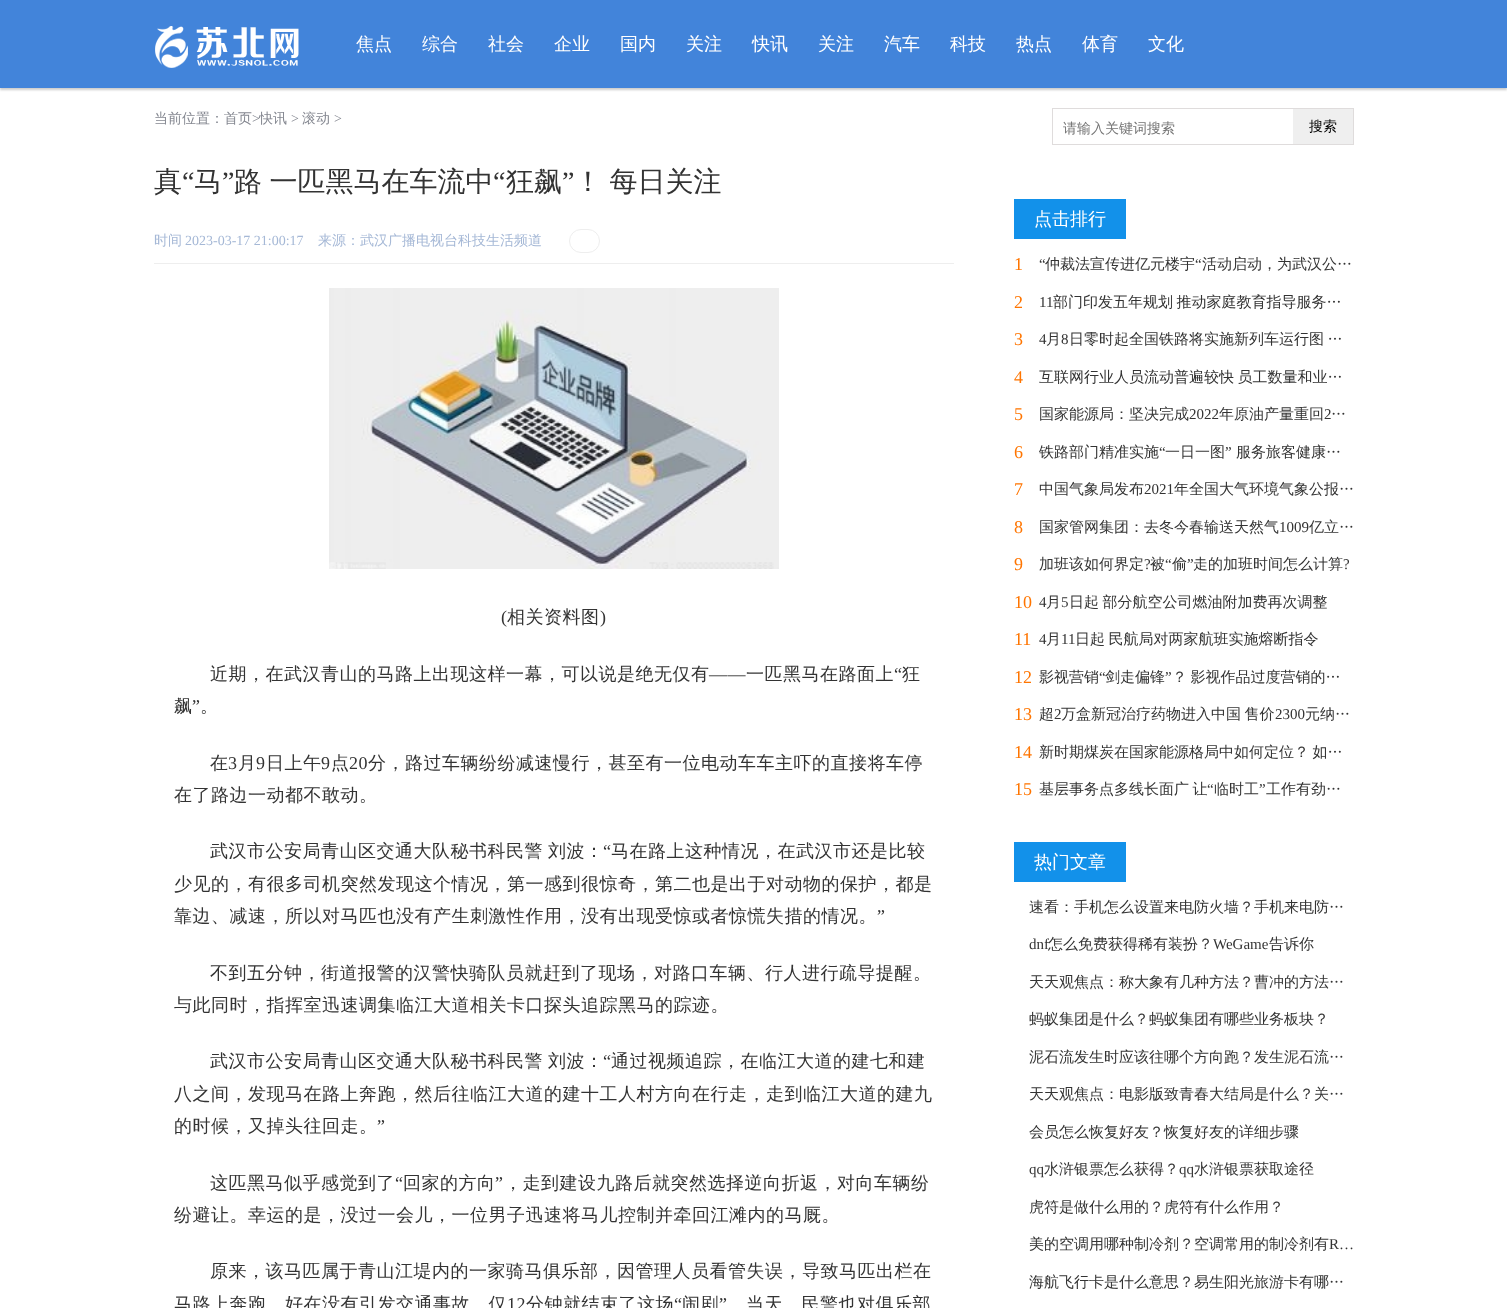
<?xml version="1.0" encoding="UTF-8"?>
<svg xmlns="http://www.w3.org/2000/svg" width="1507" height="1308">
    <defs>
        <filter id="blur1" x="-50%" y="-200%" width="200%" height="500%"><feGaussianBlur stdDeviation="1"/></filter>
    </defs>
    <rect width="100%" height="100%" fill="#FFFFFF"/>
    <rect x="0" y="2" width="1507" height="88" fill="#000000" fill-opacity="0.2" filter="url(#blur1)"/>
    <rect x="0" y="0" width="1507" height="88" fill="#4284DA"/>
    <image x="155" y="26" width="144" height="42" href="img_01.png"/>
    <text x="356" y="50" font-family="WenQuanYi Zen Hei" font-size="18" font-weight="500" fill="#FFFFFF">焦点</text>
    <text x="422" y="50" font-family="WenQuanYi Zen Hei" font-size="18" font-weight="500" fill="#FFFFFF">综合</text>
    <text x="488" y="50" font-family="WenQuanYi Zen Hei" font-size="18" font-weight="500" fill="#FFFFFF">社会</text>
    <text x="554" y="50" font-family="WenQuanYi Zen Hei" font-size="18" font-weight="500" fill="#FFFFFF">企业</text>
    <text x="620" y="50" font-family="WenQuanYi Zen Hei" font-size="18" font-weight="500" fill="#FFFFFF">国内</text>
    <text x="686" y="50" font-family="WenQuanYi Zen Hei" font-size="18" font-weight="500" fill="#FFFFFF">关注</text>
    <text x="752" y="50" font-family="WenQuanYi Zen Hei" font-size="18" font-weight="500" fill="#FFFFFF">快讯</text>
    <text x="818" y="50" font-family="WenQuanYi Zen Hei" font-size="18" font-weight="500" fill="#FFFFFF">关注</text>
    <text x="884" y="50" font-family="WenQuanYi Zen Hei" font-size="18" font-weight="500" fill="#FFFFFF">汽车</text>
    <text x="950" y="50" font-family="WenQuanYi Zen Hei" font-size="18" font-weight="500" fill="#FFFFFF">科技</text>
    <text x="1016" y="50" font-family="WenQuanYi Zen Hei" font-size="18" font-weight="500" fill="#FFFFFF">热点</text>
    <text x="1082" y="50" font-family="WenQuanYi Zen Hei" font-size="18" font-weight="500" fill="#FFFFFF">体育</text>
    <text x="1148" y="50" font-family="WenQuanYi Zen Hei" font-size="18" font-weight="500" fill="#FFFFFF">文化</text>
    <text x="154" y="123" font-family="WenQuanYi Zen Hei" font-size="14" font-weight="500" fill="#848790">当前位置：首页</text>
    <text x="252" y="123" font-family="Liberation Serif" font-size="14" fill="#848790">&gt;</text>
    <text x="259" y="123" font-family="WenQuanYi Zen Hei" font-size="14" font-weight="500" fill="#848790">快讯</text>
    <text x="291" y="123" font-family="Liberation Serif" font-size="14" fill="#848790">&gt;</text>
    <text x="302" y="123" font-family="WenQuanYi Zen Hei" font-size="14" font-weight="500" fill="#848790">滚动</text>
    <text x="334" y="123" font-family="Liberation Serif" font-size="14" fill="#848790">&gt;</text>
    <rect x="1052.5" y="108.5" width="301" height="36" fill="none" stroke="#DFDCDC"/>
    <text x="1063" y="133" font-family="WenQuanYi Zen Hei" font-size="14" font-weight="500" fill="#757575">请输入关键词搜索</text>
    <rect x="1293" y="109" width="60" height="35" fill="#EFEFEF"/>
    <text x="1309" y="131" font-family="WenQuanYi Zen Hei" font-size="14" font-weight="500" fill="#000000">搜索</text>
    <text x="154" y="191" font-family="WenQuanYi Zen Hei" font-size="28" font-weight="500" fill="#333333">真</text>
    <text x="182" y="191" font-family="Liberation Serif" font-size="28" fill="#333333">“</text>
    <text x="194" y="191" font-family="WenQuanYi Zen Hei" font-size="28" font-weight="500" fill="#333333">马</text>
    <text x="222" y="191" font-family="Liberation Serif" font-size="28" fill="#333333">”</text>
    <text x="234" y="191" word-spacing="-1" font-family="WenQuanYi Zen Hei" font-size="28" font-weight="500" fill="#333333">路 一匹黑马在车流中</text>
    <text x="493" y="191" font-family="Liberation Serif" font-size="28" fill="#333333">“</text>
    <text x="506" y="191" font-family="WenQuanYi Zen Hei" font-size="28" font-weight="500" fill="#333333">狂飙</text>
    <text x="562" y="191" font-family="Liberation Serif" font-size="28" fill="#333333">”</text>
    <text x="574" y="191" word-spacing="-1" font-family="WenQuanYi Zen Hei" font-size="28" font-weight="500" fill="#333333">！ 每日关注</text>
    <rect x="154" y="263" width="800" height="1" fill="#EEEEEE"/>
    <text x="154" y="245" font-family="WenQuanYi Zen Hei" font-size="14" font-weight="500" fill="#A5B8D6">时间</text>
    <text x="185" y="245" font-family="Liberation Serif" font-size="14" fill="#A5B8D6">2023-03-17 21:00:17</text>
    <text x="318" y="245" font-family="WenQuanYi Zen Hei" font-size="14" font-weight="500" fill="#A5B8D6">来源：武汉广播电视台科技生活频道</text>
    <rect x="569.5" y="229.5" width="30" height="23" rx="11.5" fill="none" stroke="#EEEEEE"/>
    <image x="329" y="288" width="450" height="281" href="img_02.png"/>
    <text x="501" y="623" font-family="Liberation Serif" font-size="18" letter-spacing="0.5" fill="#333333">(</text>
    <text x="507" y="623" font-family="WenQuanYi Zen Hei" font-size="18" font-weight="500" letter-spacing="0.5" fill="#333333">相关资料图</text>
    <text x="600" y="623" font-family="Liberation Serif" font-size="18" letter-spacing="0.5" fill="#333333">)</text>
    <text x="210" y="680" font-family="WenQuanYi Zen Hei" font-size="18" font-weight="500" letter-spacing="0.5" fill="#333333">近期，在武汉青山的马路上出现这样一幕，可以说是绝无仅有</text>
    <text x="746" y="680" font-family="WenQuanYi Zen Hei" font-size="18" font-weight="500" letter-spacing="0.5" fill="#333333">一匹黑马在路面上</text>
    <text x="894" y="680" font-family="Liberation Serif" font-size="18" letter-spacing="0.5" fill="#333333">“</text>
    <text x="902" y="680" font-family="WenQuanYi Zen Hei" font-size="18" font-weight="500" letter-spacing="0.5" fill="#333333">狂</text>
    <text x="709" y="680" font-family="Liberation Serif" font-size="18" letter-spacing="0.5" fill="#333333">——</text>
    <text x="174" y="712" font-family="WenQuanYi Zen Hei" font-size="18" font-weight="500" letter-spacing="0.5" fill="#333333">飙</text>
    <text x="192" y="712" font-family="Liberation Serif" font-size="18" letter-spacing="0.5" fill="#333333">”</text>
    <text x="200" y="712" font-family="WenQuanYi Zen Hei" font-size="18" font-weight="500" letter-spacing="0.5" fill="#333333">。</text>
    <text x="210" y="769" font-family="WenQuanYi Zen Hei" font-size="18" font-weight="500" letter-spacing="0.5" fill="#333333">在</text>
    <text x="228" y="769" font-family="Liberation Serif" font-size="18" letter-spacing="0.5" fill="#333333">3</text>
    <text x="238" y="769" font-family="WenQuanYi Zen Hei" font-size="18" font-weight="500" letter-spacing="0.5" fill="#333333">月</text>
    <text x="256" y="769" font-family="Liberation Serif" font-size="18" letter-spacing="0.5" fill="#333333">9</text>
    <text x="266" y="769" font-family="WenQuanYi Zen Hei" font-size="18" font-weight="500" letter-spacing="0.5" fill="#333333">日上午</text>
    <text x="321" y="769" font-family="Liberation Serif" font-size="18" letter-spacing="0.5" fill="#333333">9</text>
    <text x="331" y="769" font-family="WenQuanYi Zen Hei" font-size="18" font-weight="500" letter-spacing="0.5" fill="#333333">点</text>
    <text x="349" y="769" font-family="Liberation Serif" font-size="18" letter-spacing="0.5" fill="#333333">20</text>
    <text x="368" y="769" font-family="WenQuanYi Zen Hei" font-size="18" font-weight="500" letter-spacing="0.5" fill="#333333">分，路过车辆纷纷减速慢行，甚至有一位电动车车主吓的直接将车停</text>
    <text x="174" y="801" font-family="WenQuanYi Zen Hei" font-size="18" font-weight="500" letter-spacing="0.5" fill="#333333">在了路边一动都不敢动。</text>
    <text x="210" y="857" word-spacing="-1" font-family="WenQuanYi Zen Hei" font-size="18" font-weight="500" letter-spacing="0.5" fill="#333333">武汉市公安局青山区交通大队秘书科民警 刘波：</text>
    <text x="603" y="857" font-family="Liberation Serif" font-size="18" letter-spacing="0.5" fill="#333333">“</text>
    <text x="611" y="857" font-family="WenQuanYi Zen Hei" font-size="18" font-weight="500" letter-spacing="0.5" fill="#333333">马在路上这种情况，在武汉市还是比较</text>
    <text font-family="WenQuanYi Zen Hei" font-size="18" font-weight="500" letter-spacing="0.5" fill="#333333">
        <tspan x="174" y="890">少见的，有很多司机突然发现这个情况，第一感到很惊奇，第二也是出于对动物的保护，都是</tspan>
        <tspan x="174" y="922">靠边、减速，所以对马匹也没有产生刺激性作用，没有出现受惊或者惊慌失措的情况。</tspan>
    </text>
    <text x="877" y="922" font-family="Liberation Serif" font-size="18" letter-spacing="0.5" fill="#333333">”</text>
    <text x="210" y="979" font-family="WenQuanYi Zen Hei" font-size="18" font-weight="500" letter-spacing="0.5" fill="#333333">不到五分钟，街道报警的汉警快骑队员就赶到了现场，对路口车辆、行人进行疏导提醒。</text>
    <text x="174" y="1011" font-family="WenQuanYi Zen Hei" font-size="18" font-weight="500" letter-spacing="0.5" fill="#333333">与此同时，指挥室迅速调集临江大道相关卡口探头追踪黑马的踪迹。</text>
    <text x="210" y="1067" word-spacing="-1" font-family="WenQuanYi Zen Hei" font-size="18" font-weight="500" letter-spacing="0.5" fill="#333333">武汉市公安局青山区交通大队秘书科民警 刘波：</text>
    <text x="603" y="1067" font-family="Liberation Serif" font-size="18" letter-spacing="0.5" fill="#333333">“</text>
    <text x="611" y="1067" font-family="WenQuanYi Zen Hei" font-size="18" font-weight="500" letter-spacing="0.5" fill="#333333">通过视频追踪，在临江大道的建七和建</text>
    <text font-family="WenQuanYi Zen Hei" font-size="18" font-weight="500" letter-spacing="0.5" fill="#333333">
        <tspan x="174" y="1100">八之间，发现马在路上奔跑，然后往临江大道的建十工人村方向在行走，走到临江大道的建九</tspan>
        <tspan x="174" y="1132">的时候，又掉头往回走。</tspan>
    </text>
    <text x="377" y="1132" font-family="Liberation Serif" font-size="18" letter-spacing="0.5" fill="#333333">”</text>
    <text x="210" y="1189" font-family="WenQuanYi Zen Hei" font-size="18" font-weight="500" letter-spacing="0.5" fill="#333333">这匹黑马似乎感觉到了</text>
    <text x="395" y="1189" font-family="Liberation Serif" font-size="18" letter-spacing="0.5" fill="#333333">“</text>
    <text x="403" y="1189" font-family="WenQuanYi Zen Hei" font-size="18" font-weight="500" letter-spacing="0.5" fill="#333333">回家的方向</text>
    <text x="495" y="1189" font-family="Liberation Serif" font-size="18" letter-spacing="0.5" fill="#333333">”</text>
    <text x="504" y="1189" font-family="WenQuanYi Zen Hei" font-size="18" font-weight="500" letter-spacing="0.5" fill="#333333">，走到建设九路后就突然选择逆向折返，对向车辆纷</text>
    <text x="174" y="1221" font-family="WenQuanYi Zen Hei" font-size="18" font-weight="500" letter-spacing="0.5" fill="#333333">纷避让。幸运的是，没过一会儿，一位男子迅速将马儿控制并牵回江滩内的马厩。</text>
    <text x="210" y="1277" font-family="WenQuanYi Zen Hei" font-size="18" font-weight="500" letter-spacing="0.5" fill="#333333">原来，该马匹属于青山江堤内的一家骑马俱乐部，因管理人员看管失误，导致马匹出栏在</text>
    <text x="174" y="1310" font-family="WenQuanYi Zen Hei" font-size="18" font-weight="500" letter-spacing="0.5" fill="#333333">马路上奔跑，好在没有引发交通事故，仅</text>
    <text x="507" y="1310" font-family="Liberation Serif" font-size="18" letter-spacing="0.5" fill="#333333">12</text>
    <text x="526" y="1310" font-family="WenQuanYi Zen Hei" font-size="18" font-weight="500" letter-spacing="0.5" fill="#333333">分钟就结束了这场</text>
    <text x="674" y="1310" font-family="Liberation Serif" font-size="18" letter-spacing="0.5" fill="#333333">“</text>
    <text x="682" y="1310" font-family="WenQuanYi Zen Hei" font-size="18" font-weight="500" letter-spacing="0.5" fill="#333333">闹剧</text>
    <text x="719" y="1310" font-family="Liberation Serif" font-size="18" letter-spacing="0.5" fill="#333333">”</text>
    <text x="746" y="1310" font-family="WenQuanYi Zen Hei" font-size="18" font-weight="500" letter-spacing="0.5" fill="#333333">当天，民警也对俱乐部</text>
    <rect x="1014" y="199" width="112" height="40" fill="#1291EA"/>
    <text x="1034" y="225" font-family="WenQuanYi Zen Hei" font-size="18" font-weight="500" fill="#FFFFFF">点击排行</text>
    <text x="1014" y="270" font-family="Liberation Serif" font-size="18" fill="#FF7500">1</text>
    <text x="1039" y="269" font-family="Liberation Serif" font-size="15" fill="#333333">“</text>
    <text x="1045" y="269" font-family="WenQuanYi Zen Hei" font-size="15" font-weight="500" fill="#333333">仲裁法宣传进亿元楼宇</text>
    <text x="1195" y="269" font-family="Liberation Serif" font-size="15" fill="#333333">“</text>
    <text x="1202" y="269" font-family="WenQuanYi Zen Hei" font-size="15" font-weight="500" fill="#333333">活动启动，为武汉公…</text>
    <text x="1014" y="308" font-family="Liberation Serif" font-size="18" fill="#FF7500">2</text>
    <text x="1039" y="307" font-family="Liberation Serif" font-size="15" fill="#333333">11</text>
    <text x="1053" y="307" word-spacing="-1" font-family="WenQuanYi Zen Hei" font-size="15" font-weight="500" fill="#333333">部门印发五年规划 推动家庭教育指导服务…</text>
    <text x="1014" y="345" font-family="Liberation Serif" font-size="18" fill="#FF7500">3</text>
    <text x="1039" y="344" font-family="Liberation Serif" font-size="15" fill="#333333">4</text>
    <text x="1046" y="344" font-family="WenQuanYi Zen Hei" font-size="15" font-weight="500" fill="#333333">月</text>
    <text x="1061" y="344" font-family="Liberation Serif" font-size="15" fill="#333333">8</text>
    <text x="1069" y="344" word-spacing="-1" font-family="WenQuanYi Zen Hei" font-size="15" font-weight="500" fill="#333333">日零时起全国铁路将实施新列车运行图 …</text>
    <text x="1014" y="383" font-family="Liberation Serif" font-size="18" fill="#FF7500">4</text>
    <text x="1039" y="382" word-spacing="-1" font-family="WenQuanYi Zen Hei" font-size="15" font-weight="500" fill="#333333">互联网行业人员流动普遍较快 员工数量和业…</text>
    <text x="1014" y="420" font-family="Liberation Serif" font-size="18" fill="#FF7500">5</text>
    <text x="1039" y="419" font-family="WenQuanYi Zen Hei" font-size="15" font-weight="500" fill="#333333">国家能源局：坚决完成</text>
    <text x="1189" y="419" font-family="Liberation Serif" font-size="15" fill="#333333">2022</text>
    <text x="1219" y="419" font-family="WenQuanYi Zen Hei" font-size="15" font-weight="500" fill="#333333">年原油产量重回</text>
    <text x="1324" y="419" font-family="Liberation Serif" font-size="15" fill="#333333">2</text>
    <text x="1331" y="419" font-family="WenQuanYi Zen Hei" font-size="15" font-weight="500" fill="#333333">…</text>
    <text x="1014" y="458" font-family="Liberation Serif" font-size="18" fill="#FF7500">6</text>
    <text x="1039" y="457" font-family="WenQuanYi Zen Hei" font-size="15" font-weight="500" fill="#333333">铁路部门精准实施</text>
    <text x="1159" y="457" font-family="Liberation Serif" font-size="15" fill="#333333">“</text>
    <text x="1165" y="457" font-family="WenQuanYi Zen Hei" font-size="15" font-weight="500" fill="#333333">一日一图</text>
    <text x="1225" y="457" font-family="Liberation Serif" font-size="15" fill="#333333">”</text>
    <text x="1236" y="457" font-family="WenQuanYi Zen Hei" font-size="15" font-weight="500" fill="#333333">服务旅客健康…</text>
    <text x="1014" y="495" font-family="Liberation Serif" font-size="18" fill="#FF7500">7</text>
    <text x="1039" y="494" font-family="WenQuanYi Zen Hei" font-size="15" font-weight="500" fill="#333333">中国气象局发布</text>
    <text x="1144" y="494" font-family="Liberation Serif" font-size="15" fill="#333333">2021</text>
    <text x="1174" y="494" word-spacing="-1" font-family="WenQuanYi Zen Hei" font-size="15" font-weight="500" fill="#333333">年全国大气环境气象公报…</text>
    <text x="1014" y="533" font-family="Liberation Serif" font-size="18" fill="#FF7500">8</text>
    <text x="1039" y="532" font-family="WenQuanYi Zen Hei" font-size="15" font-weight="500" fill="#333333">国家管网集团：去冬今春输送天然气</text>
    <text x="1279" y="532" font-family="Liberation Serif" font-size="15" fill="#333333">1009</text>
    <text x="1309" y="532" font-family="WenQuanYi Zen Hei" font-size="15" font-weight="500" fill="#333333">亿立…</text>
    <text x="1014" y="570" font-family="Liberation Serif" font-size="18" fill="#FF7500">9</text>
    <text x="1039" y="569" font-family="WenQuanYi Zen Hei" font-size="15" font-weight="500" fill="#333333">加班该如何界定</text>
    <text x="1144" y="569" font-family="Liberation Serif" font-size="15" fill="#333333">?</text>
    <text x="1150" y="569" font-family="WenQuanYi Zen Hei" font-size="15" font-weight="500" fill="#333333">被</text>
    <text x="1165" y="569" font-family="Liberation Serif" font-size="15" fill="#333333">“</text>
    <text x="1172" y="569" font-family="WenQuanYi Zen Hei" font-size="15" font-weight="500" fill="#333333">偷</text>
    <text x="1187" y="569" font-family="Liberation Serif" font-size="15" fill="#333333">”</text>
    <text x="1193" y="569" font-family="WenQuanYi Zen Hei" font-size="15" font-weight="500" fill="#333333">走的加班时间怎么计算</text>
    <text x="1343" y="569" font-family="Liberation Serif" font-size="15" fill="#333333">?</text>
    <text x="1014" y="608" font-family="Liberation Serif" font-size="18" fill="#FF7500">10</text>
    <text x="1039" y="607" font-family="Liberation Serif" font-size="15" fill="#333333">4</text>
    <text x="1046" y="607" font-family="WenQuanYi Zen Hei" font-size="15" font-weight="500" fill="#333333">月</text>
    <text x="1061" y="607" font-family="Liberation Serif" font-size="15" fill="#333333">5</text>
    <text x="1069" y="607" word-spacing="-1" font-family="WenQuanYi Zen Hei" font-size="15" font-weight="500" fill="#333333">日起 部分航空公司燃油附加费再次调整</text>
    <text x="1014" y="645" font-family="Liberation Serif" font-size="18" fill="#FF7500">11</text>
    <text x="1039" y="644" font-family="Liberation Serif" font-size="15" fill="#333333">4</text>
    <text x="1046" y="644" font-family="WenQuanYi Zen Hei" font-size="15" font-weight="500" fill="#333333">月</text>
    <text x="1061" y="644" font-family="Liberation Serif" font-size="15" fill="#333333">11</text>
    <text x="1075" y="644" word-spacing="-1" font-family="WenQuanYi Zen Hei" font-size="15" font-weight="500" fill="#333333">日起 民航局对两家航班实施熔断指令</text>
    <text x="1014" y="683" font-family="Liberation Serif" font-size="18" fill="#FF7500">12</text>
    <text x="1039" y="682" font-family="WenQuanYi Zen Hei" font-size="15" font-weight="500" fill="#333333">影视营销</text>
    <text x="1099" y="682" font-family="Liberation Serif" font-size="15" fill="#333333">“</text>
    <text x="1105" y="682" font-family="WenQuanYi Zen Hei" font-size="15" font-weight="500" fill="#333333">剑走偏锋</text>
    <text x="1165" y="682" font-family="Liberation Serif" font-size="15" fill="#333333">”</text>
    <text x="1172" y="682" word-spacing="-1" font-family="WenQuanYi Zen Hei" font-size="15" font-weight="500" fill="#333333">？ 影视作品过度营销的…</text>
    <text x="1014" y="720" font-family="Liberation Serif" font-size="18" fill="#FF7500">13</text>
    <text x="1039" y="719" font-family="WenQuanYi Zen Hei" font-size="15" font-weight="500" fill="#333333">超</text>
    <text x="1054" y="719" font-family="Liberation Serif" font-size="15" fill="#333333">2</text>
    <text x="1061" y="719" word-spacing="-1" font-family="WenQuanYi Zen Hei" font-size="15" font-weight="500" fill="#333333">万盒新冠治疗药物进入中国 售价</text>
    <text x="1275" y="719" font-family="Liberation Serif" font-size="15" fill="#333333">2300</text>
    <text x="1305" y="719" font-family="WenQuanYi Zen Hei" font-size="15" font-weight="500" fill="#333333">元纳…</text>
    <text x="1014" y="758" font-family="Liberation Serif" font-size="18" fill="#FF7500">14</text>
    <text x="1039" y="757" word-spacing="-1" font-family="WenQuanYi Zen Hei" font-size="15" font-weight="500" fill="#333333">新时期煤炭在国家能源格局中如何定位？ 如…</text>
    <text x="1014" y="795" font-family="Liberation Serif" font-size="18" fill="#FF7500">15</text>
    <text x="1039" y="794" word-spacing="-1" font-family="WenQuanYi Zen Hei" font-size="15" font-weight="500" fill="#333333">基层事务点多线长面广 让</text>
    <text x="1207" y="794" font-family="Liberation Serif" font-size="15" fill="#333333">“</text>
    <text x="1214" y="794" font-family="WenQuanYi Zen Hei" font-size="15" font-weight="500" fill="#333333">临时工</text>
    <text x="1259" y="794" font-family="Liberation Serif" font-size="15" fill="#333333">”</text>
    <text x="1266" y="794" font-family="WenQuanYi Zen Hei" font-size="15" font-weight="500" fill="#333333">工作有劲…</text>
    <rect x="1014" y="842" width="112" height="40" fill="#1291EA"/>
    <text x="1034" y="868" font-family="WenQuanYi Zen Hei" font-size="18" font-weight="500" fill="#FFFFFF">热门文章</text>
    <text x="1029" y="912" font-family="WenQuanYi Zen Hei" font-size="15" font-weight="500" fill="#333333">速看：手机怎么设置来电防火墙？手机来电防…</text>
    <text x="1029" y="949" font-family="Liberation Serif" font-size="15" fill="#333333">dnf</text>
    <text x="1048" y="949" font-family="WenQuanYi Zen Hei" font-size="15" font-weight="500" fill="#333333">怎么免费获得稀有装扮？</text>
    <text x="1213" y="949" font-family="Liberation Serif" font-size="15" fill="#333333">WeGame</text>
    <text x="1269" y="949" font-family="WenQuanYi Zen Hei" font-size="15" font-weight="500" fill="#333333">告诉你</text>
    <text x="1029" y="987" font-family="WenQuanYi Zen Hei" font-size="15" font-weight="500" fill="#333333">天天观焦点：称大象有几种方法？曹冲的方法…</text>
    <text x="1029" y="1024" font-family="WenQuanYi Zen Hei" font-size="15" font-weight="500" fill="#333333">蚂蚁集团是什么？蚂蚁集团有哪些业务板块？</text>
    <text x="1029" y="1062" font-family="WenQuanYi Zen Hei" font-size="15" font-weight="500" fill="#333333">泥石流发生时应该往哪个方向跑？发生泥石流…</text>
    <text x="1029" y="1099" font-family="WenQuanYi Zen Hei" font-size="15" font-weight="500" fill="#333333">天天观焦点：电影版致青春大结局是什么？关…</text>
    <text x="1029" y="1137" font-family="WenQuanYi Zen Hei" font-size="15" font-weight="500" fill="#333333">会员怎么恢复好友？恢复好友的详细步骤</text>
    <text x="1029" y="1174" font-family="Liberation Serif" font-size="15" fill="#333333">qq</text>
    <text x="1044" y="1174" font-family="WenQuanYi Zen Hei" font-size="15" font-weight="500" fill="#333333">水浒银票怎么获得？</text>
    <text x="1179" y="1174" font-family="Liberation Serif" font-size="15" fill="#333333">qq</text>
    <text x="1194" y="1174" font-family="WenQuanYi Zen Hei" font-size="15" font-weight="500" fill="#333333">水浒银票获取途径</text>
    <text x="1029" y="1212" font-family="WenQuanYi Zen Hei" font-size="15" font-weight="500" fill="#333333">虎符是做什么用的？虎符有什么作用？</text>
    <text x="1029" y="1249" font-family="WenQuanYi Zen Hei" font-size="15" font-weight="500" fill="#333333">美的空调用哪种制冷剂？空调常用的制冷剂有</text>
    <text x="1329" y="1249" font-family="Liberation Serif" font-size="15" fill="#333333">R…</text>
    <text x="1029" y="1287" font-family="WenQuanYi Zen Hei" font-size="15" font-weight="500" fill="#333333">海航飞行卡是什么意思？易生阳光旅游卡有哪…</text>
</svg>
